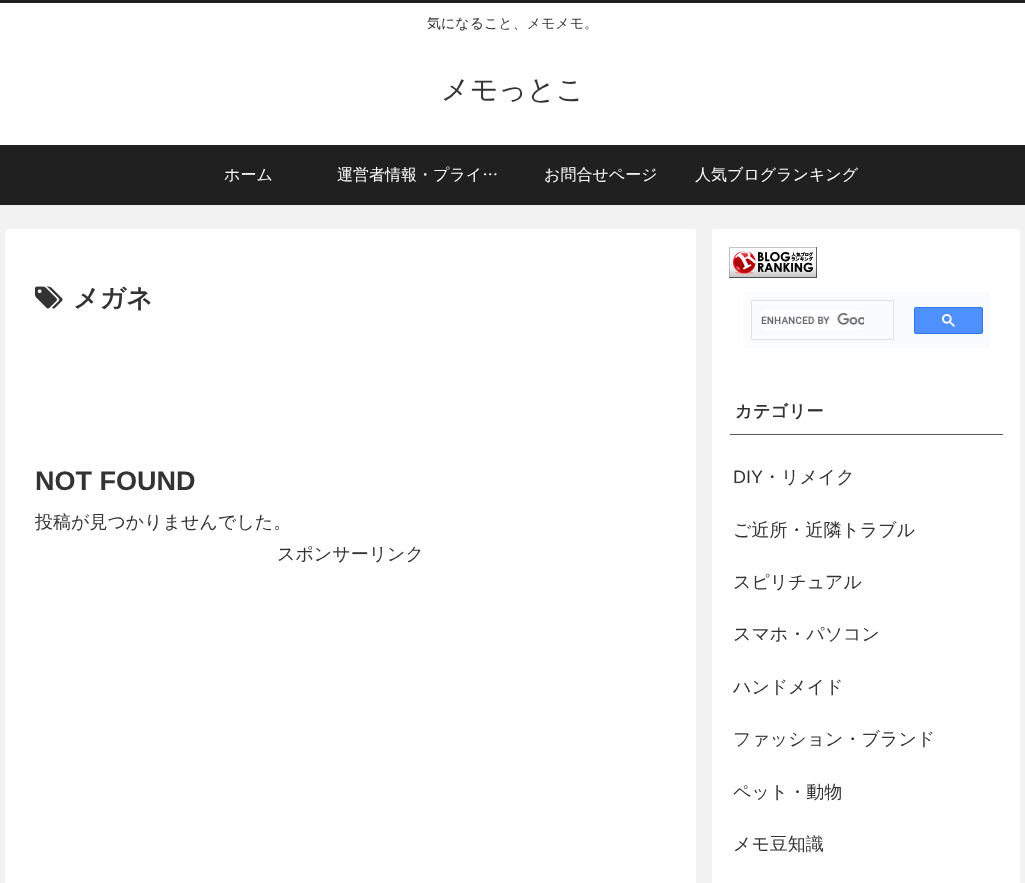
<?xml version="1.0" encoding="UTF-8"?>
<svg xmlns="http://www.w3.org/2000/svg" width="1025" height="883">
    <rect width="100%" height="100%" fill="#F2F2F2"/>
    <rect x="0" y="3" width="1025" height="142" fill="#FFFFFF"/>
    <rect x="0" y="0" width="1025" height="3" fill="#202020"/>
    <text x="427" y="28" font-family="WenQuanYi Zen Hei" font-size="14" font-weight="500" fill="#333333">気になること、メモメモ。</text>
    <text x="441" y="99" font-family="WenQuanYi Zen Hei" font-size="28" font-weight="500" fill="#333333">メモっとこ</text>
    <rect x="0" y="145" width="1025" height="60" fill="#202020"/>
    <text x="224" y="180" font-family="WenQuanYi Zen Hei" font-size="16" font-weight="500" fill="#FFFFFF">ホーム</text>
    <text x="337" y="180" font-family="WenQuanYi Zen Hei" font-size="16" font-weight="500" fill="#FFFFFF">運営者情報・プライ…</text>
    <text x="544" y="180" font-family="WenQuanYi Zen Hei" font-size="16" font-weight="500" fill="#FFFFFF">お問合せページ</text>
    <text x="695" y="180" font-family="WenQuanYi Zen Hei" font-size="16" font-weight="500" fill="#FFFFFF">人気ブログランキング</text>
    <rect x="5" y="229" width="691" height="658" rx="4" fill="#FFFFFF"/>
    <image x="35" y="286" width="28" height="23" href="img_01.png"/>
    <text x="73" y="307" font-family="WenQuanYi Zen Hei" font-size="26" font-weight="700" fill="#333333">メガネ</text>
    <text x="35" y="490" font-family="Liberation Sans" font-size="27" font-weight="700" fill="#333333">NOT FOUND</text>
    <text x="35" y="528" font-family="WenQuanYi Zen Hei" font-size="18" font-weight="500" fill="#333333">投稿が見つかりませんでした。</text>
    <text x="277" y="560" font-family="WenQuanYi Zen Hei" font-size="18" font-weight="500" fill="#333333">スポンサーリンク</text>
    <rect x="712" y="229" width="308" height="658" rx="4" fill="#FFFFFF"/>
    <image x="729" y="247" width="88" height="31" href="img_02.png"/>
    <rect x="743" y="292" width="247" height="56" fill="#FAFBFC"/>
    <rect x="751.5" y="300.5" width="142" height="39" fill="none" stroke="#DFE1E5"/>
    <rect x="761" y="310" width="103" height="20" rx="4" fill="#FFFFFF"/>
    <image x="761" y="313" width="103" height="12" href="img_03.png"/>
    <rect x="914.5" y="307.5" width="68" height="26" rx="1.5" fill="#4D90FE" stroke="#3079ED"/>
    <image x="942" y="314" width="13" height="13" href="img_04.png"/>
    <rect x="730" y="434" width="273" height="1" fill="#595857"/>
    <text x="735" y="417" font-family="WenQuanYi Zen Hei" font-size="17" font-weight="700" letter-spacing="0.5" fill="#333333">カテゴリー</text>
    <text x="733" y="483" font-family="Liberation Sans" font-size="18" fill="#333333">DIY</text>
    <text x="763" y="483" font-family="WenQuanYi Zen Hei" font-size="18" font-weight="500" fill="#333333">・リメイク</text>
    <text x="733" y="536" font-family="WenQuanYi Zen Hei" font-size="18" font-weight="500" fill="#333333">ご近所・近隣トラブル</text>
    <text x="733" y="588" font-family="WenQuanYi Zen Hei" font-size="18" font-weight="500" fill="#333333">スピリチュアル</text>
    <text x="733" y="640" font-family="WenQuanYi Zen Hei" font-size="18" font-weight="500" fill="#333333">スマホ・パソコン</text>
    <text x="733" y="693" font-family="WenQuanYi Zen Hei" font-size="18" font-weight="500" fill="#333333">ハンドメイド</text>
    <text x="733" y="745" font-family="WenQuanYi Zen Hei" font-size="18" font-weight="500" fill="#333333">ファッション・ブランド</text>
    <text x="733" y="798" font-family="WenQuanYi Zen Hei" font-size="18" font-weight="500" fill="#333333">ペット・動物</text>
    <text x="733" y="850" font-family="WenQuanYi Zen Hei" font-size="18" font-weight="500" fill="#333333">メモ豆知識</text>
</svg>
